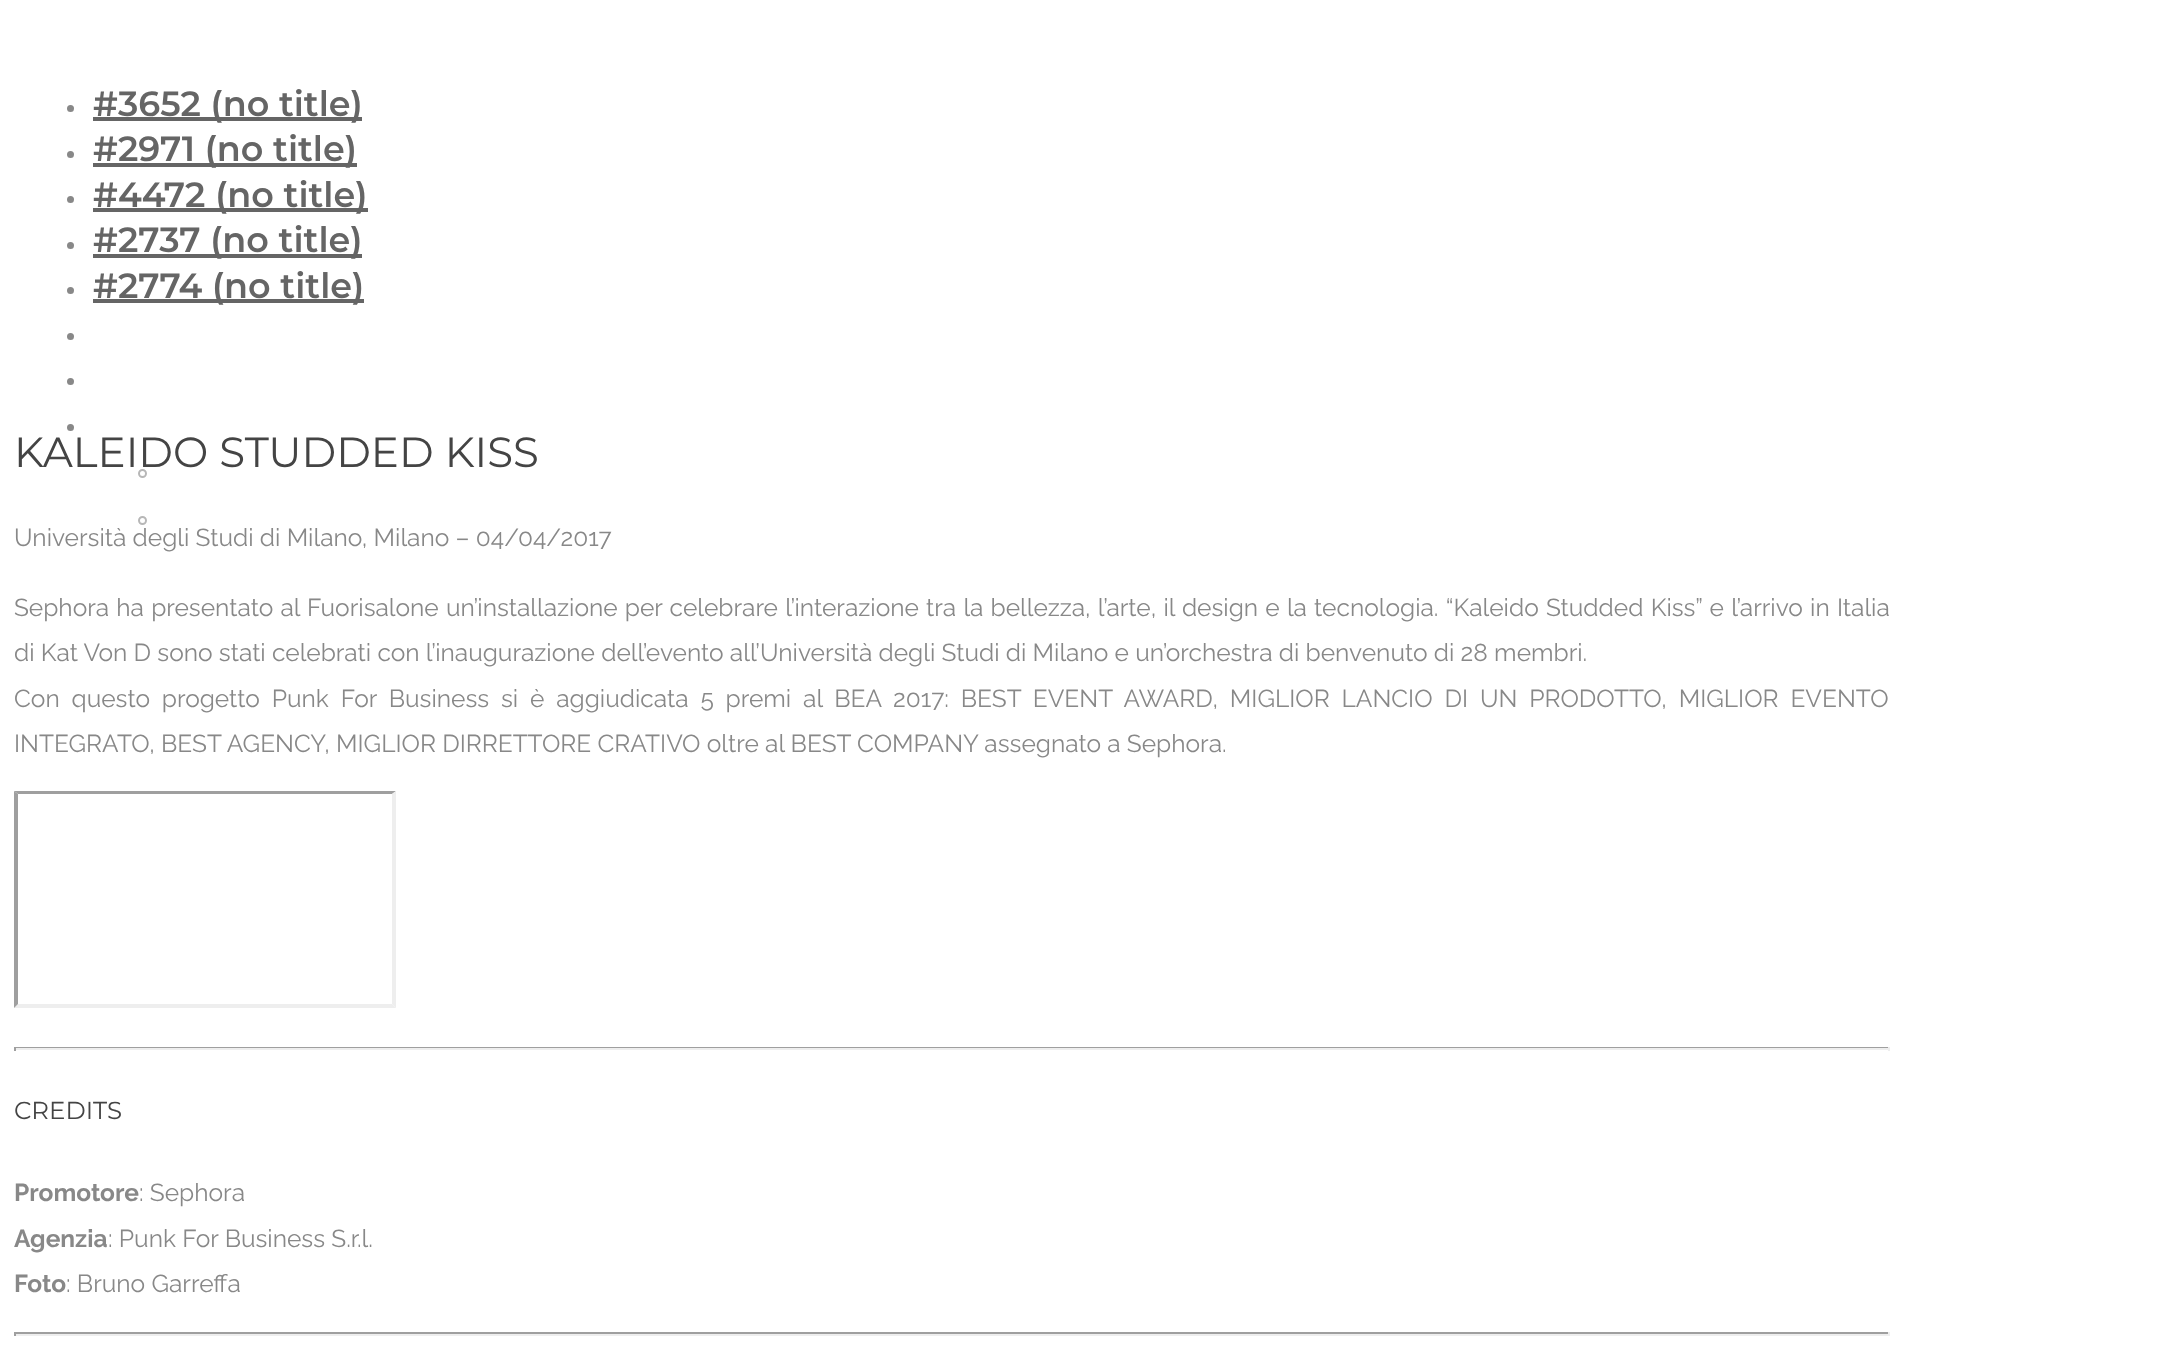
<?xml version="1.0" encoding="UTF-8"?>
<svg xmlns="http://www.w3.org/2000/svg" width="2184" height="1347">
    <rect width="100%" height="100%" fill="#FFFFFF"/>
    <circle cx="70.5" cy="108.5" r="3.5" fill="#888888"/>
    <rect x="93" y="117" width="269" height="4" fill="#656565"/>
    <text x="93" y="116" font-family="Montserrat" font-size="35" font-weight="600" fill="#656565">#3652 (no title)</text>
    <circle cx="70.5" cy="154.5" r="3.5" fill="#888888"/>
    <rect x="93" y="163" width="264" height="4" fill="#656565"/>
    <text x="93" y="161" font-family="Montserrat" font-size="35" font-weight="600" fill="#656565">#2971 (no title)</text>
    <circle cx="70.5" cy="199.5" r="3.5" fill="#888888"/>
    <rect x="93" y="208" width="275" height="4" fill="#656565"/>
    <text x="93" y="207" font-family="Montserrat" font-size="35" font-weight="600" fill="#656565">#4472 (no title)</text>
    <circle cx="70.5" cy="245.5" r="3.5" fill="#888888"/>
    <rect x="93" y="254" width="269" height="4" fill="#656565"/>
    <text x="93" y="252" font-family="Montserrat" font-size="35" font-weight="600" fill="#656565">#2737 (no title)</text>
    <circle cx="70.5" cy="290.5" r="3.5" fill="#888888"/>
    <rect x="93" y="299" width="271" height="4" fill="#656565"/>
    <text x="93" y="298" font-family="Montserrat" font-size="35" font-weight="600" fill="#656565">#2774 (no title)</text>
    <circle cx="70.5" cy="336.5" r="3.5" fill="#888888"/>
    <circle cx="70.5" cy="381.5" r="3.5" fill="#888888"/>
    <circle cx="70.5" cy="427.5" r="3.5" fill="#888888"/>
    <circle cx="142.5" cy="473.5" r="3.5" fill="none" stroke="#B7B7B7" stroke-width="2"/>
    <circle cx="142.5" cy="520.5" r="3.5" fill="none" stroke="#B7B7B7" stroke-width="2"/>
    <text x="14" y="467" font-family="Montserrat" font-size="42" fill="#444444">KALEIDO STUDDED KISS</text>
    <text x="14" y="546" font-family="Raleway" font-size="24.5" fill="#888888">Università degli Studi di Milano, Milano – 04/04/2017</text>
    <text font-family="Raleway" font-size="24.5" fill="#888888">
        <tspan x="14" y="616" word-spacing="0.95">Sephora ha presentato al Fuorisalone un’installazione per celebrare l’interazione tra la bellezza, l’arte, il design e la tecnologia. “Kaleido Studded Kiss” e l’arrivo in Italia</tspan>
        <tspan x="14" y="661">di Kat Von D sono stati celebrati con l’inaugurazione dell’evento all’Università degli Studi di Milano e un’orchestra di benvenuto di 28 membri.</tspan>
        <tspan x="14" y="707" word-spacing="5.6">Con questo progetto Punk For Business si è aggiudicata 5 premi al BEA 2017: BEST EVENT AWARD, MIGLIOR LANCIO DI UN PRODOTTO, MIGLIOR EVENTO</tspan>
        <tspan x="14" y="752">INTEGRATO, BEST AGENCY, MIGLIOR DIRRETTORE CRATIVO oltre al BEST COMPANY assegnato a Sephora.</tspan>
    </text>
    <path d="M 14 791 H 396 L 392 794 H 18 Z" fill="#9F9F9F"/>
    <path d="M 396 791 V 1008 L 392 1004 V 794 Z" fill="#EEEEEE"/>
    <path d="M 396 1008 H 14 L 18 1004 H 392 Z" fill="#EEEEEE"/>
    <path d="M 14 1008 V 791 L 18 794 V 1004 Z" fill="#9F9F9F"/>
    <rect x="14" y="1047" width="1876" height="1" fill="#9F9F9F"/>
    <rect x="1888" y="1047" width="2" height="4" fill="#EEEEEE"/>
    <rect x="14" y="1048" width="1876" height="2" fill="#EEEEEE"/>
    <rect x="14" y="1047" width="2" height="4" fill="#9F9F9F"/>
    <text x="14" y="1119" font-family="Montserrat" font-size="24.5" fill="#444444">CREDITS</text>
    <text x="14" y="1201" font-family="Raleway" font-size="24.5" font-weight="700" fill="#888888">Promotore</text>
    <text x="139" y="1201" font-family="Raleway" font-size="24.5" fill="#888888">: Sephora</text>
    <text x="14" y="1247" font-family="Raleway" font-size="24.5" font-weight="700" fill="#888888">Agenzia</text>
    <text x="108" y="1247" font-family="Raleway" font-size="24.5" fill="#888888">: Punk For Business S.r.l.</text>
    <text x="14" y="1292" font-family="Raleway" font-size="24.5" font-weight="700" fill="#888888">Foto</text>
    <text x="66" y="1292" font-family="Raleway" font-size="24.5" fill="#888888">: Bruno Garreffa</text>
    <rect x="14" y="1332" width="1876" height="2" fill="#9F9F9F"/>
    <rect x="1888" y="1332" width="2" height="4" fill="#EEEEEE"/>
    <rect x="14" y="1334" width="1876" height="2" fill="#EEEEEE"/>
    <rect x="14" y="1332" width="2" height="4" fill="#9F9F9F"/>
</svg>
